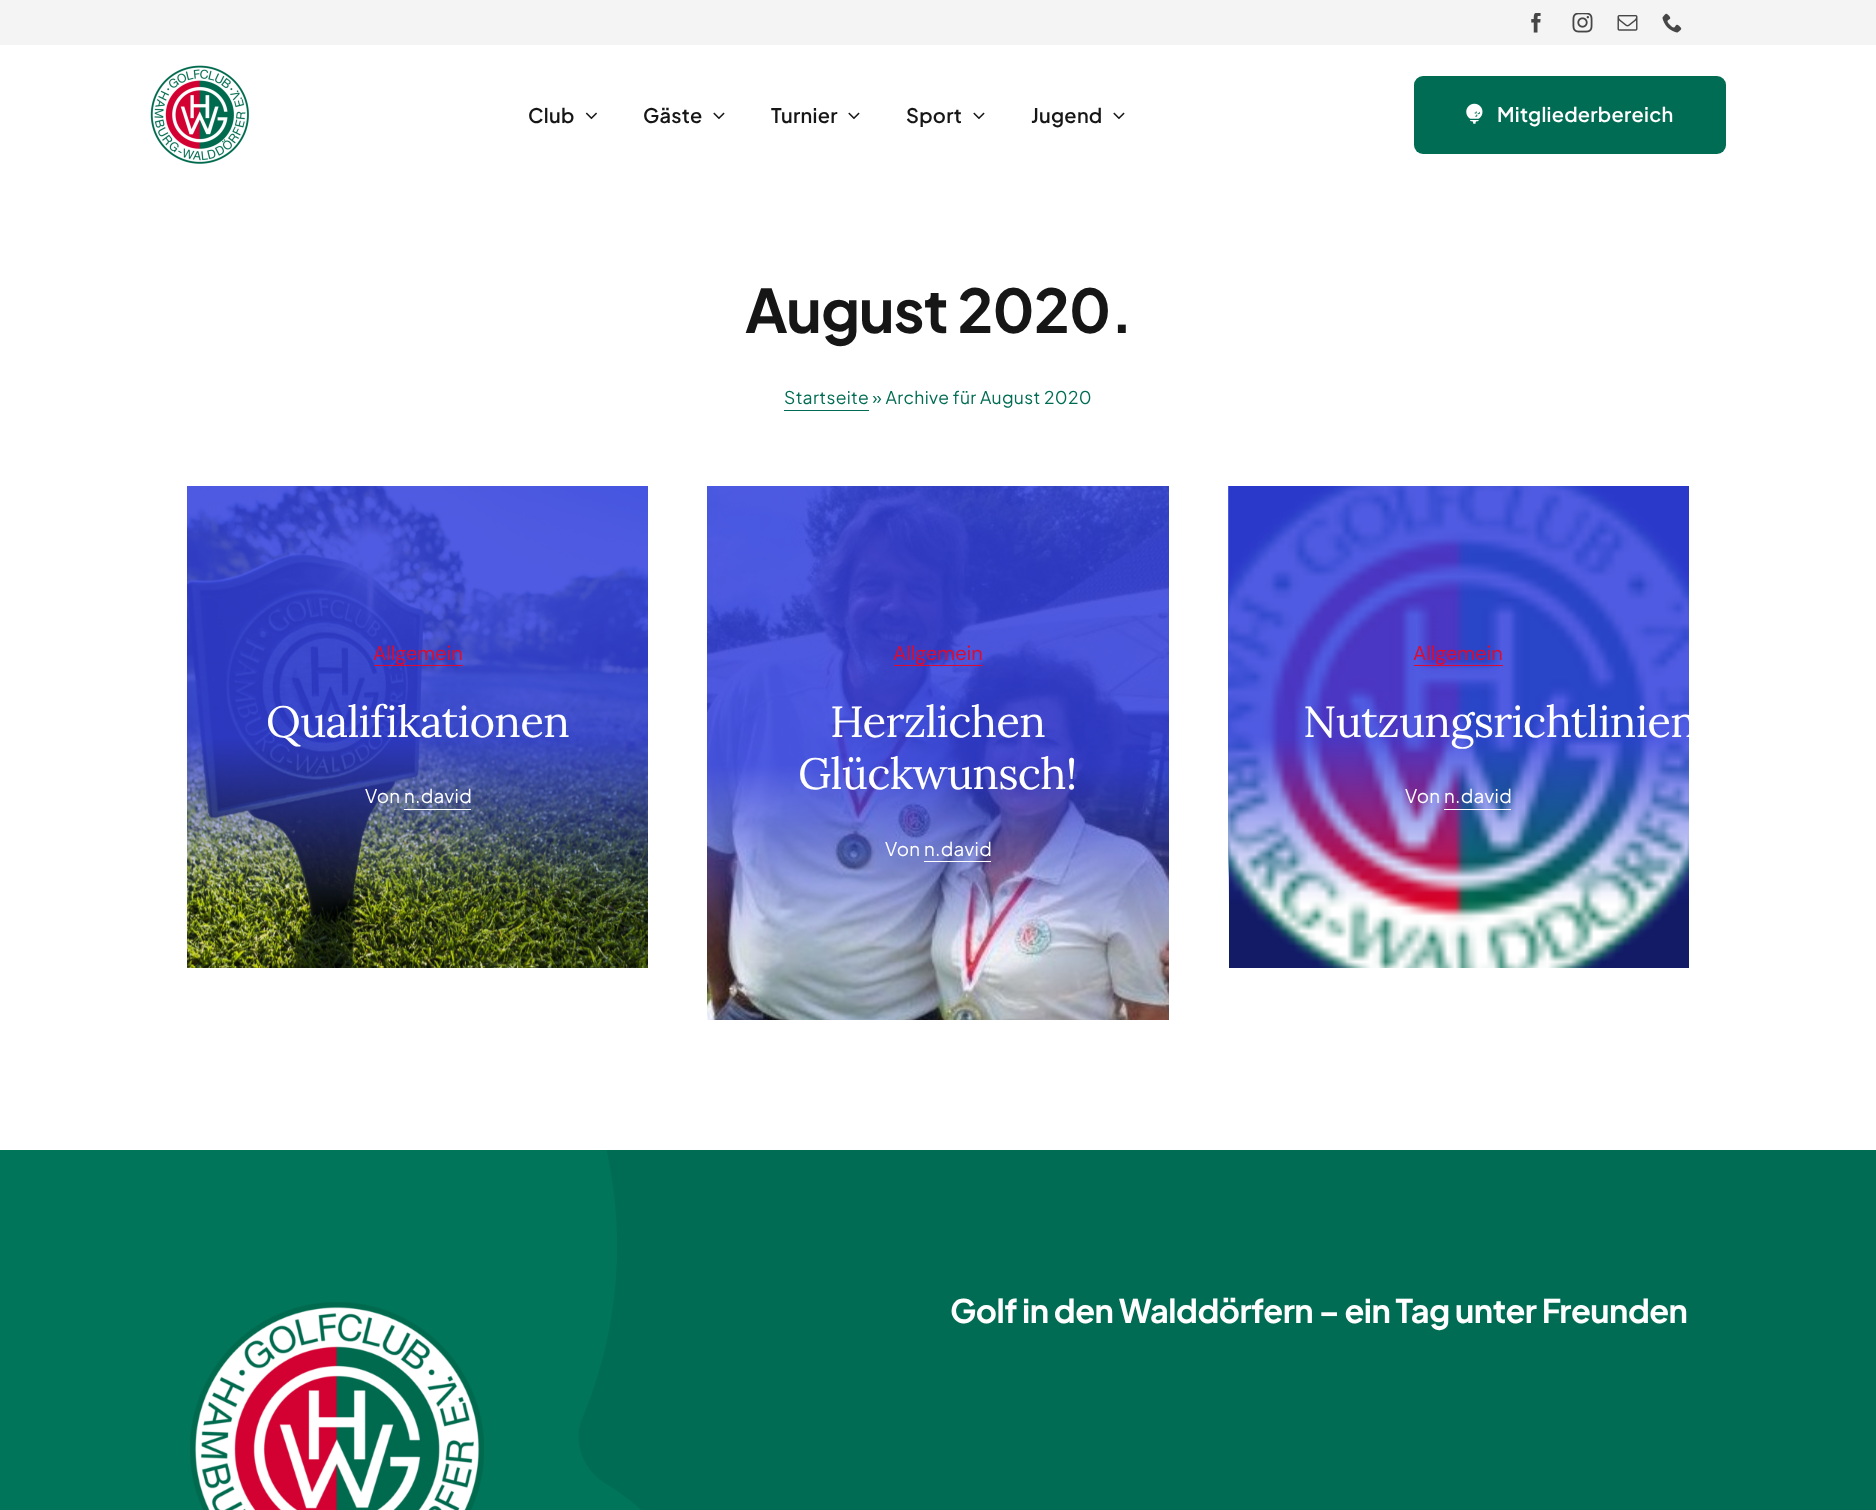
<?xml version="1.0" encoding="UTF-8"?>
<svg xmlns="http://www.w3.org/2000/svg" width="1876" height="1510">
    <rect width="100%" height="100%" fill="#FFFFFF"/>
    <rect x="0" y="0" width="1876" height="45" fill="#F4F4F4"/>
    <image x="1531" y="13" width="10" height="20" href="img_01.png"/>
    <image x="1572" y="13" width="21" height="20" href="img_02.png"/>
    <image x="1617" y="15" width="21" height="16" href="img_03.png"/>
    <image x="1662" y="13" width="20" height="20" href="img_04.png"/>
    <image x="150" y="65" width="99" height="99" href="img_05.png"/>
    <text x="528" y="123" font-family="Plus Jakarta Sans" font-size="20" font-weight="600" letter-spacing="0.25" fill="#161616">Club</text>
    <image x="585" y="112" width="12" height="8" href="img_06.png"/>
    <text x="643" y="123" font-family="Plus Jakarta Sans" font-size="20" font-weight="600" letter-spacing="0.25" fill="#161616">Gäste</text>
    <image x="713" y="112" width="12" height="8" href="img_07.png"/>
    <text x="771" y="123" font-family="Plus Jakarta Sans" font-size="20" font-weight="600" letter-spacing="0.25" fill="#161616">Turnier</text>
    <image x="848" y="112" width="12" height="8" href="img_07.png"/>
    <text x="906" y="123" font-family="Plus Jakarta Sans" font-size="20" font-weight="600" letter-spacing="0.25" fill="#161616">Sport</text>
    <image x="973" y="112" width="12" height="8" href="img_07.png"/>
    <text x="1031" y="123" font-family="Plus Jakarta Sans" font-size="20" font-weight="600" letter-spacing="0.25" fill="#161616">Jugend</text>
    <image x="1113" y="112" width="12" height="8" href="img_07.png"/>
    <rect x="1414" y="76" width="312" height="78" rx="9" fill="#006C53"/>
    <image x="1466" y="103" width="17" height="21" href="img_08.png"/>
    <text x="1497" y="122" font-family="Plus Jakarta Sans" font-size="20" font-weight="600" letter-spacing="0.25" fill="#FFFFFF">Mitgliederbereich</text>
    <text x="745" y="333" font-family="Plus Jakarta Sans" font-size="60" font-weight="700" letter-spacing="-0.9" fill="#161616">August 2020.</text>
    <text x="784" y="404" font-family="Plus Jakarta Sans" font-size="17.5" letter-spacing="0.35" fill="#006C53">Startseite » Archive für August 2020</text>
    <rect x="784" y="410" width="85" height="1" fill="#006C53"/>
    <image x="187" y="486" width="461" height="482" href="img_09.png"/>
    <text x="373" y="660" font-family="DM Sans" font-size="20" fill="#DD0B30">Allgemein</text>
    <rect x="374" y="665" width="89" height="1" fill="#DD0B30"/>
    <text x="266" y="737" font-family="Lora" font-size="43.75" letter-spacing="-0.7" fill="#FFFFFF">Qualifikationen</text>
    <text x="365" y="803" font-family="Plus Jakarta Sans" font-size="18.75" letter-spacing="0.35" fill="#FFFFFF">Von n.david</text>
    <rect x="404" y="809" width="67" height="1" fill="#FFFFFF"/>
    <image x="707" y="486" width="462" height="534" href="img_10.png"/>
    <text x="893" y="660" font-family="DM Sans" font-size="20" fill="#DD0B30">Allgemein</text>
    <rect x="894" y="665" width="89" height="1" fill="#DD0B30"/>
    <text x="830" y="737" font-family="Lora" font-size="43.75" letter-spacing="-0.7" fill="#FFFFFF">Herzlichen</text>
    <text x="798" y="789" font-family="Lora" font-size="43.75" letter-spacing="-0.7" fill="#FFFFFF">Glückwunsch!</text>
    <text x="885" y="856" font-family="Plus Jakarta Sans" font-size="18.75" letter-spacing="0.35" fill="#FFFFFF">Von n.david</text>
    <rect x="924" y="861" width="67" height="1" fill="#FFFFFF"/>
    <rect x="1229" y="486" width="460" height="482" fill="#131B67"/>
    <image x="1228" y="486" width="461" height="482" href="img_11.png"/>
    <text x="1413" y="660" font-family="DM Sans" font-size="20" fill="#DD0B30">Allgemein</text>
    <rect x="1414" y="665" width="89" height="1" fill="#DD0B30"/>
    <text x="1303" y="737" font-family="Lora" font-size="43.75" letter-spacing="-0.7" fill="#FFFFFF">Nutzungsrichtlinien</text>
    <text x="1405" y="803" font-family="Plus Jakarta Sans" font-size="18.75" letter-spacing="0.35" fill="#FFFFFF">Von n.david</text>
    <rect x="1444" y="809" width="67" height="1" fill="#FFFFFF"/>
    <rect x="578" y="1150" width="1298" height="360" fill="#006C53"/>
    <image x="0" y="1150" width="641" height="360" href="img_12.png"/>
    <image x="190" y="1302" width="294" height="208" href="img_13.png"/>
    <text x="950" y="1323" font-family="Plus Jakarta Sans" font-size="32.5" font-weight="700" letter-spacing="-0.5" fill="#FFFFFF">Golf in den Walddörfern – ein Tag unter Freunden</text>
</svg>
